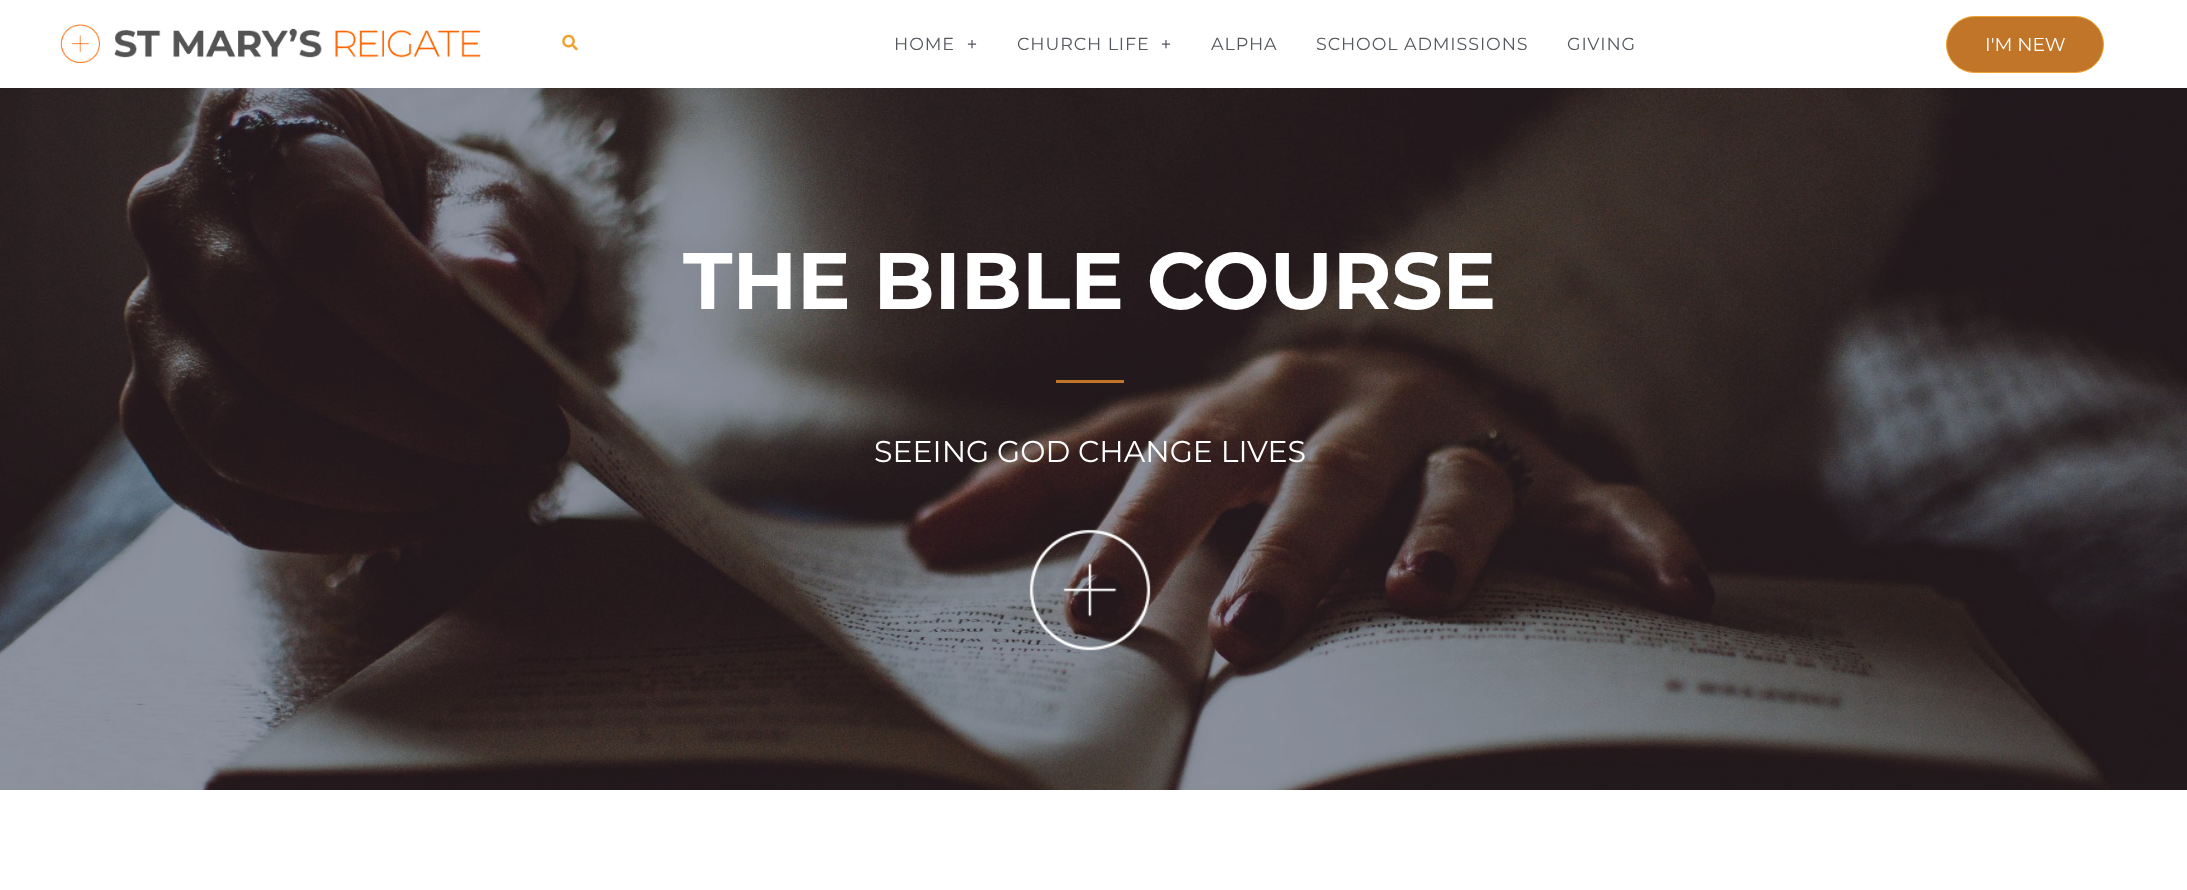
<?xml version="1.0" encoding="UTF-8"?>
<svg xmlns="http://www.w3.org/2000/svg" width="2187" height="890">
    <rect width="100%" height="100%" fill="#FFFFFF"/>
    <image x="60" y="24" width="421" height="39" href="img_01.png"/>
    <image x="562" y="34" width="16" height="17" href="img_02.png"/>
    <text x="894" y="50" font-family="Montserrat" font-size="17.5" letter-spacing="0.9" fill="#54595F">HOME</text>
    <text x="967" y="50" font-family="Liberation Serif" font-size="17.5" font-weight="700" letter-spacing="0.9" fill="#54595F">+</text>
    <text x="1017" y="50" font-family="Montserrat" font-size="17.5" letter-spacing="0.9" fill="#54595F">CHURCH LIFE</text>
    <text x="1161" y="50" font-family="Liberation Serif" font-size="17.5" font-weight="700" letter-spacing="0.9" fill="#54595F">+</text>
    <text x="1211" y="50" font-family="Montserrat" font-size="17.5" letter-spacing="0.9" fill="#54595F">ALPHA</text>
    <text x="1316" y="50" font-family="Montserrat" font-size="17.5" letter-spacing="0.9" fill="#54595F">SCHOOL ADMISSIONS</text>
    <text x="1567" y="50" font-family="Montserrat" font-size="17.5" letter-spacing="0.9" fill="#54595F">GIVING</text>
    <rect x="1946.5" y="16.5" width="157" height="56" rx="28" fill="#C17529" stroke="#F0A22E"/>
    <text x="1985" y="51" font-family="Montserrat" font-size="18.75" fill="#FFFFFF">I'M NEW</text>
    <image x="0" y="88" width="2187" height="702" href="img_03.png"/>
    <text x="683" y="309" font-family="Montserrat" font-size="80" font-weight="700" fill="#FFFFFF">THE BIBLE COURSE</text>
    <rect x="1056" y="380" width="68" height="3" fill="#C17529"/>
    <text x="874" y="462" font-family="Montserrat" font-size="30" fill="#FFFFFF">SEEING GOD CHANGE LIVES</text>
    <image x="1029" y="529" width="122" height="122" href="img_04.png"/>
</svg>
